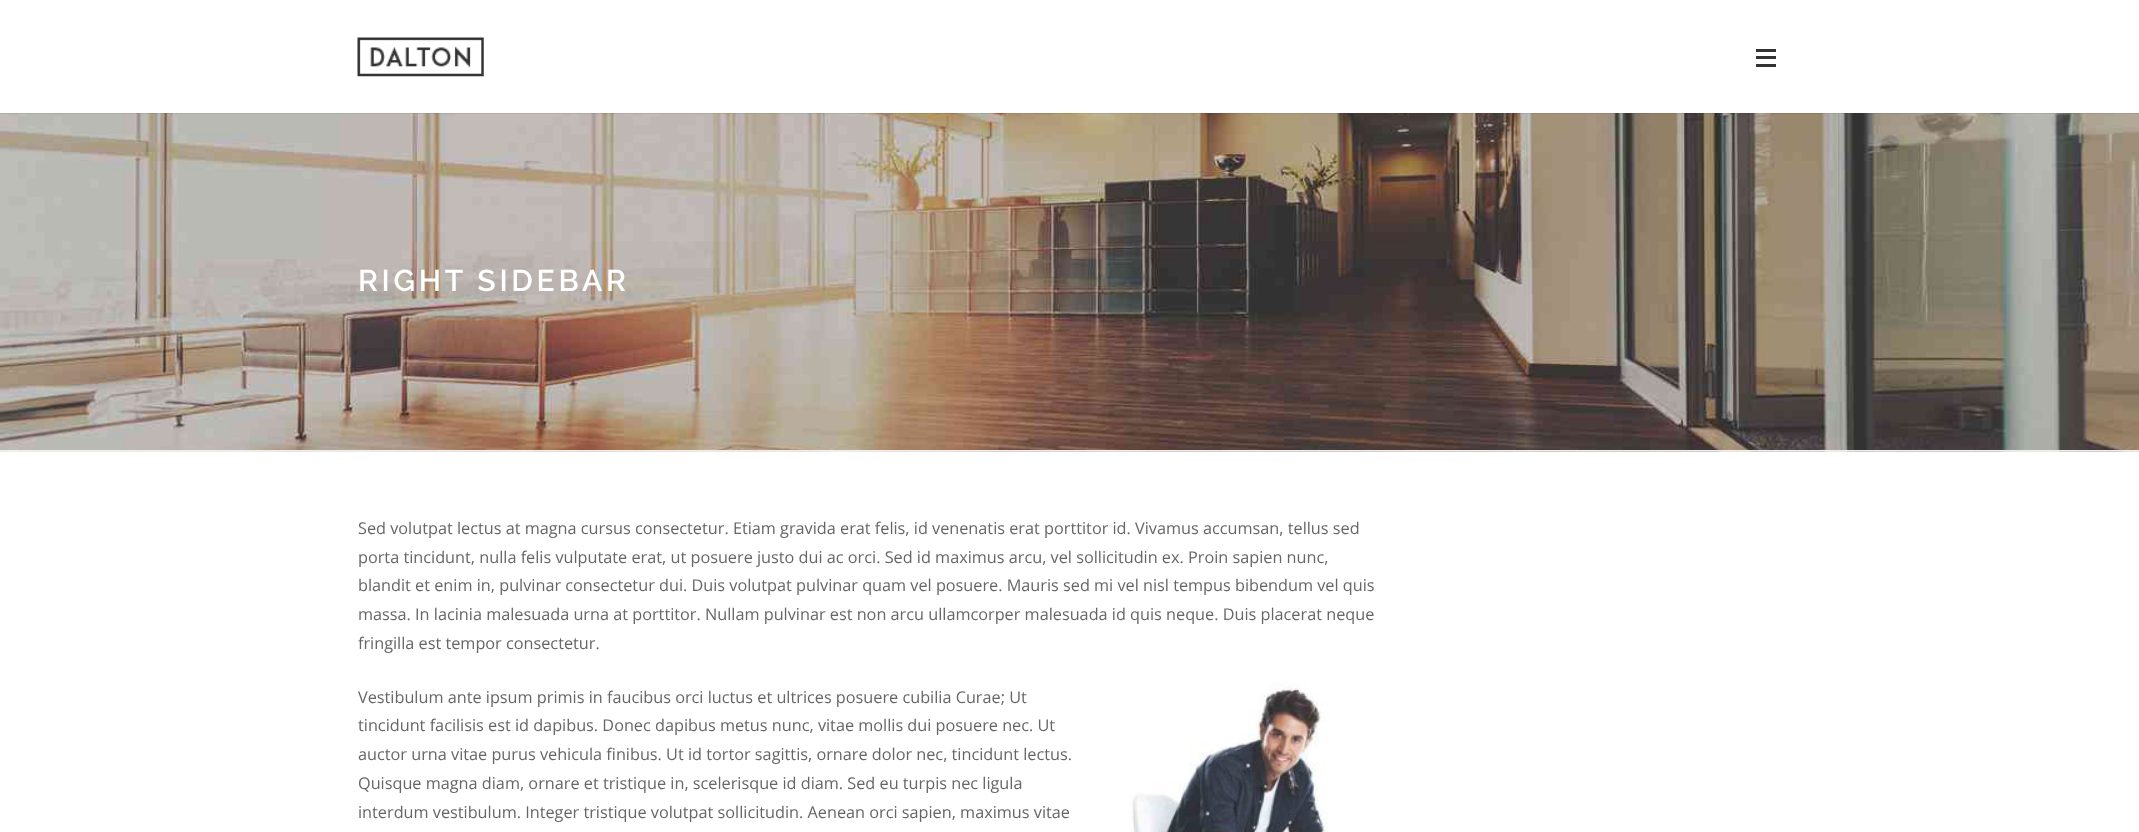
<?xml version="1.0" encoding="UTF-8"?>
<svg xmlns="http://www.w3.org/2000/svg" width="2139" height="832">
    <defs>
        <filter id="blur1" x="-50%" y="-200%" width="200%" height="500%"><feGaussianBlur stdDeviation="0.5"/></filter>
    </defs>
    <rect width="100%" height="100%" fill="#FFFFFF"/>
    <image x="0" y="113" width="2139" height="339" href="img_02.png"/>
    <rect x="0" y="1" width="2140" height="113" fill="#000000" fill-opacity="0.08" filter="url(#blur1)"/>
    <rect x="0" y="1" width="2139" height="112" fill="#FFFFFF"/>
    <image x="357" y="37" width="127" height="40" href="img_01.png"/>
    <rect x="1756" y="56" width="20" height="3" fill="#333333"/>
    <rect x="1756" y="49" width="20" height="3" fill="#333333"/>
    <rect x="1756" y="64" width="20" height="3" fill="#333333"/>
    <rect x="0" y="450" width="2139" height="1" fill="#EEEEEE"/>
    <text x="358" y="291" font-family="Raleway" font-size="30" font-weight="600" letter-spacing="3.75" fill="#FFFFFF">RIGHT SIDEBAR</text>
    <text font-family="Open Sans" font-size="16.25" fill="#666666">
        <tspan x="358" y="534">Sed volutpat lectus at magna cursus consectetur. Etiam gravida erat felis, id venenatis erat porttitor id. Vivamus accumsan, tellus sed</tspan>
        <tspan x="358" y="563">porta tincidunt, nulla felis vulputate erat, ut posuere justo dui ac orci. Sed id maximus arcu, vel sollicitudin ex. Proin sapien nunc,</tspan>
        <tspan x="358" y="591">blandit et enim in, pulvinar consectetur dui. Duis volutpat pulvinar quam vel posuere. Mauris sed mi vel nisl tempus bibendum vel quis</tspan>
        <tspan x="358" y="620">massa. In lacinia malesuada urna at porttitor. Nullam pulvinar est non arcu ullamcorper malesuada id quis neque. Duis placerat neque</tspan>
        <tspan x="358" y="649">fringilla est tempor consectetur.</tspan>
    </text>
    <text x="358" y="703" font-family="Open Sans" font-size="16.25" fill="#666666">Vestibulum ante ipsum primis in faucibus orci luctus et ultrices posuere cubilia Curae; Ut</text>
    <image x="1129" y="682" width="200" height="150" href="img_03.png"/>
    <text font-family="Open Sans" font-size="16.25" fill="#666666">
        <tspan x="358" y="731">tincidunt facilisis est id dapibus. Donec dapibus metus nunc, vitae mollis dui posuere nec. Ut</tspan>
        <tspan x="358" y="760">auctor urna vitae purus vehicula finibus. Ut id tortor sagittis, ornare dolor nec, tincidunt lectus.</tspan>
        <tspan x="358" y="789">Quisque magna diam, ornare et tristique in, scelerisque id diam. Sed eu turpis nec ligula</tspan>
        <tspan x="358" y="818">interdum vestibulum. Integer tristique volutpat sollicitudin. Aenean orci sapien, maximus vitae</tspan>
    </text>
</svg>
